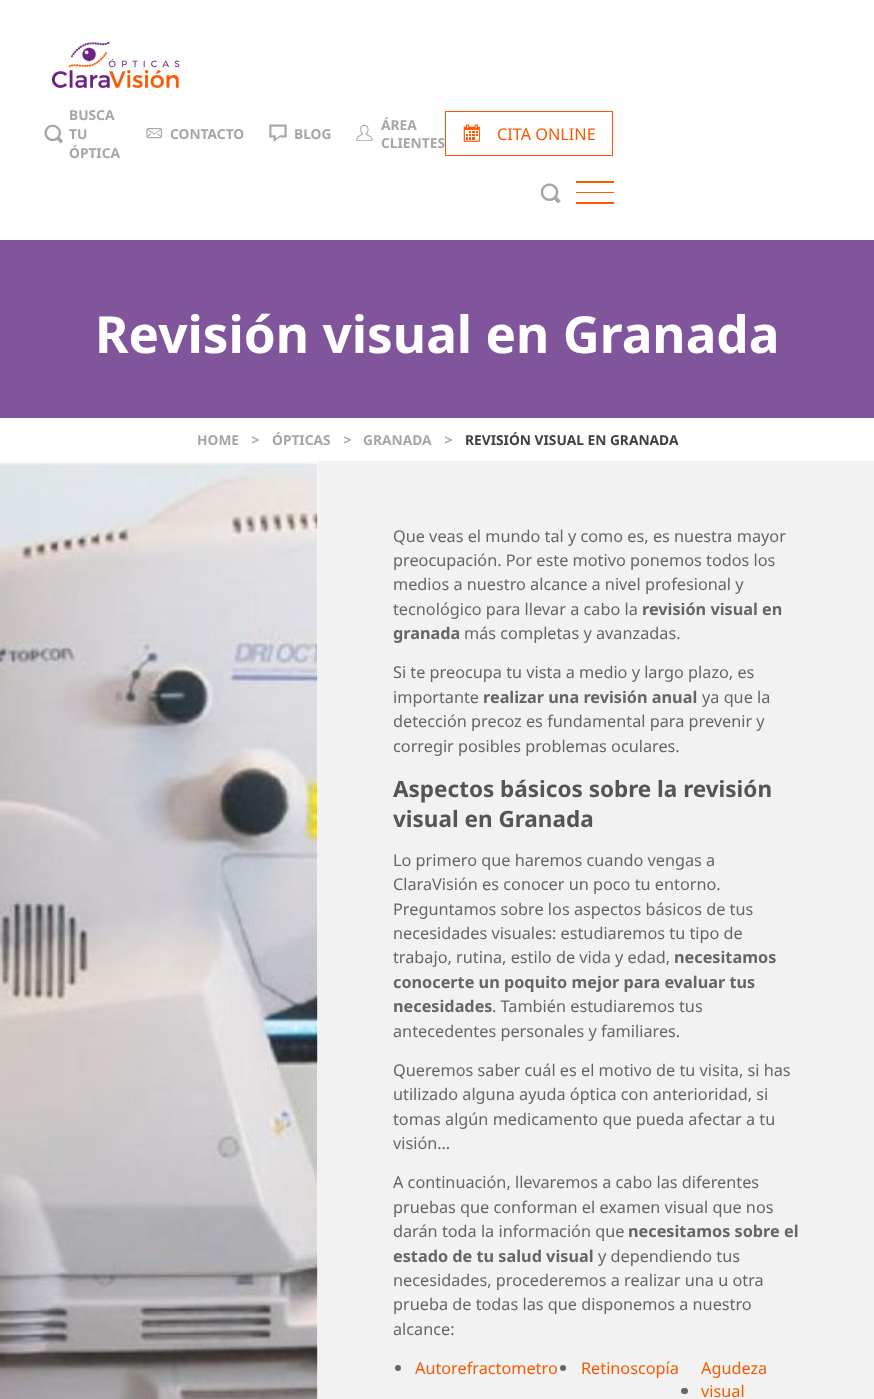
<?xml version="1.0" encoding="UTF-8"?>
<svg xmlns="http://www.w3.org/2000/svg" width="874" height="1399">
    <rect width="100%" height="100%" fill="#FFFFFF"/>
    <image x="51" y="42" width="129" height="46" href="img_01.png"/>
    <image x="44" y="124" width="19" height="20" href="img_02.png"/>
    <text font-family="Noto Sans" font-size="13.75" font-weight="700" fill="#A6A6A6">
        <tspan x="69" y="120">BUSCA</tspan>
        <tspan x="69" y="139">TU</tspan>
        <tspan x="69" y="158">ÓPTICA</tspan>
    </text>
    <image x="146" y="128" width="17" height="11" href="img_03.png"/>
    <text x="170" y="139" font-family="Noto Sans" font-size="13.75" font-weight="700" fill="#A6A6A6">CONTACTO</text>
    <image x="269" y="124" width="18" height="18" href="img_04.png"/>
    <text x="294" y="139" font-family="Noto Sans" font-size="13.75" font-weight="700" fill="#A6A6A6">BLOG</text>
    <image x="356" y="125" width="17" height="16" href="img_05.png"/>
    <text font-family="Noto Sans" font-size="13.75" font-weight="700" fill="#A6A6A6">
        <tspan x="381" y="130">ÁREA</tspan>
        <tspan x="381" y="148">CLIENTES</tspan>
    </text>
    <image x="463" y="124" width="17" height="18" href="img_06.png"/>
    <rect x="445.5" y="111.5" width="167" height="44" fill="none" stroke="#F85900"/>
    <text x="497" y="140" font-family="Noto Sans" font-size="16.25" fill="#F85900">CITA ONLINE</text>
    <image x="540" y="183" width="21" height="20" href="img_07.png"/>
    <rect x="576" y="181" width="38" height="2" fill="#FF5800"/>
    <rect x="576" y="192" width="38" height="1" fill="#FF5800"/>
    <rect x="576" y="202" width="38" height="2" fill="#FF5800"/>
    <rect x="0" y="240" width="874" height="178" fill="#81559C"/>
    <text x="95" y="353" font-family="Noto Sans" font-size="51.25" font-weight="700" fill="#FFFFFF">Revisión visual en Granada</text>
    <text x="197" y="445" font-family="Noto Sans" font-size="13.75" font-weight="700" fill="#A6A6A6">HOME</text>
    <text x="251" y="445" font-family="Noto Sans" font-size="13.75" font-weight="700" font-style="italic" fill="#A6A6A6">&gt;</text>
    <text x="272" y="445" font-family="Noto Sans" font-size="13.75" font-weight="700" fill="#A6A6A6">ÓPTICAS</text>
    <text x="343" y="445" font-family="Noto Sans" font-size="13.75" font-weight="700" font-style="italic" fill="#A6A6A6">&gt;</text>
    <text x="363" y="445" font-family="Noto Sans" font-size="13.75" font-weight="700" fill="#A6A6A6">GRANADA</text>
    <text x="444" y="445" font-family="Noto Sans" font-size="13.75" font-weight="700" font-style="italic" fill="#A6A6A6">&gt;</text>
    <text x="465" y="445" font-family="Noto Sans" font-size="13.75" font-weight="700" fill="#404040">REVISIÓN VISUAL EN GRANADA</text>
    <image x="0" y="461" width="318" height="938" href="img_08.png"/>
    <rect x="318" y="461" width="556" height="938" fill="#F2F2F2"/>
    <text font-family="Noto Sans" font-size="16.25" fill="#666666">
        <tspan x="393" y="542">Que veas el mundo tal y como es, es nuestra mayor</tspan>
        <tspan x="393" y="566">preocupación. Por este motivo ponemos todos los</tspan>
        <tspan x="393" y="590">medios a nuestro alcance a nivel profesional y</tspan>
        <tspan x="393" y="615">tecnológico para llevar a cabo la</tspan>
    </text>
    <text x="642" y="615" font-family="Noto Sans" font-size="16.25" font-weight="700" fill="#666666">revisión visual en</text>
    <text x="393" y="639" font-family="Noto Sans" font-size="16.25" font-weight="700" fill="#666666">granada</text>
    <text x="464" y="639" font-family="Noto Sans" font-size="16.25" fill="#666666">más completas y avanzadas.</text>
    <text font-family="Noto Sans" font-size="16.25" fill="#666666">
        <tspan x="393" y="678">Si te preocupa tu vista a medio y largo plazo, es</tspan>
        <tspan x="393" y="703">importante</tspan>
    </text>
    <text x="483" y="703" font-family="Noto Sans" font-size="16.25" font-weight="700" fill="#666666">realizar una revisión anual</text>
    <text x="702" y="703" font-family="Noto Sans" font-size="16.25" fill="#666666">ya que la</text>
    <text font-family="Noto Sans" font-size="16.25" fill="#666666">
        <tspan x="393" y="727">detección precoz es fundamental para prevenir y</tspan>
        <tspan x="393" y="752">corregir posibles problemas oculares.</tspan>
    </text>
    <text font-family="Noto Sans" font-size="22.5" font-weight="700" fill="#555559">
        <tspan x="393" y="797">Aspectos básicos sobre la revisión</tspan>
        <tspan x="393" y="827">visual en Granada</tspan>
    </text>
    <text font-family="Noto Sans" font-size="16.25" fill="#666666">
        <tspan x="393" y="866">Lo primero que haremos cuando vengas a</tspan>
        <tspan x="393" y="890">ClaraVisión es conocer un poco tu entorno.</tspan>
        <tspan x="393" y="915">Preguntamos sobre los aspectos básicos de tus</tspan>
        <tspan x="393" y="939">necesidades visuales: estudiaremos tu tipo de</tspan>
        <tspan x="393" y="963">trabajo, rutina, estilo de vida y edad,</tspan>
    </text>
    <text x="674" y="963" font-family="Noto Sans" font-size="16.25" font-weight="700" fill="#666666">necesitamos</text>
    <text font-family="Noto Sans" font-size="16.25" font-weight="700" fill="#666666">
        <tspan x="393" y="988">conocerte un poquito mejor para evaluar tus</tspan>
        <tspan x="393" y="1012">necesidades</tspan>
    </text>
    <text x="492" y="1012" font-family="Noto Sans" font-size="16.25" fill="#666666">. También estudiaremos tus</text>
    <text x="393" y="1037" font-family="Noto Sans" font-size="16.25" fill="#666666">antecedentes personales y familiares.</text>
    <text font-family="Noto Sans" font-size="16.25" fill="#666666">
        <tspan x="393" y="1076">Queremos saber cuál es el motivo de tu visita, si has</tspan>
        <tspan x="393" y="1100">utilizado alguna ayuda óptica con anterioridad, si</tspan>
        <tspan x="393" y="1125">tomas algún medicamento que pueda afectar a tu</tspan>
        <tspan x="393" y="1149">visión…</tspan>
    </text>
    <text font-family="Noto Sans" font-size="16.25" fill="#666666">
        <tspan x="393" y="1188">A continuación, llevaremos a cabo las diferentes</tspan>
        <tspan x="393" y="1213">pruebas que conforman el examen visual que nos</tspan>
        <tspan x="393" y="1237">darán toda la información que</tspan>
    </text>
    <text x="628" y="1237" font-family="Noto Sans" font-size="16.25" font-weight="700" fill="#666666">necesitamos sobre el</text>
    <text x="393" y="1262" font-family="Noto Sans" font-size="16.25" font-weight="700" fill="#666666">estado de tu salud visual</text>
    <text x="598" y="1262" font-family="Noto Sans" font-size="16.25" fill="#666666">y dependiendo tus</text>
    <text font-family="Noto Sans" font-size="16.25" fill="#666666">
        <tspan x="393" y="1286">necesidades, procederemos a realizar una u otra</tspan>
        <tspan x="393" y="1310">prueba de todas las que disponemos a nuestro</tspan>
        <tspan x="393" y="1335">alcance:</tspan>
    </text>
    <circle cx="398" cy="1368" r="3" fill="#666666"/>
    <text x="415" y="1374" font-family="Noto Sans" font-size="16.25" fill="#F85900">Autorefractometro</text>
    <circle cx="563" cy="1368" r="3" fill="#666666"/>
    <text x="581" y="1374" font-family="Noto Sans" font-size="16.25" fill="#F85900">Retinoscopía</text>
    <rect x="681" y="1388" width="7" height="6" rx="3" fill="#666666"/>
    <text font-family="Noto Sans" font-size="16.25" fill="#F85900">
        <tspan x="701" y="1374">Agudeza</tspan>
        <tspan x="701" y="1397">visual</tspan>
    </text>
</svg>
